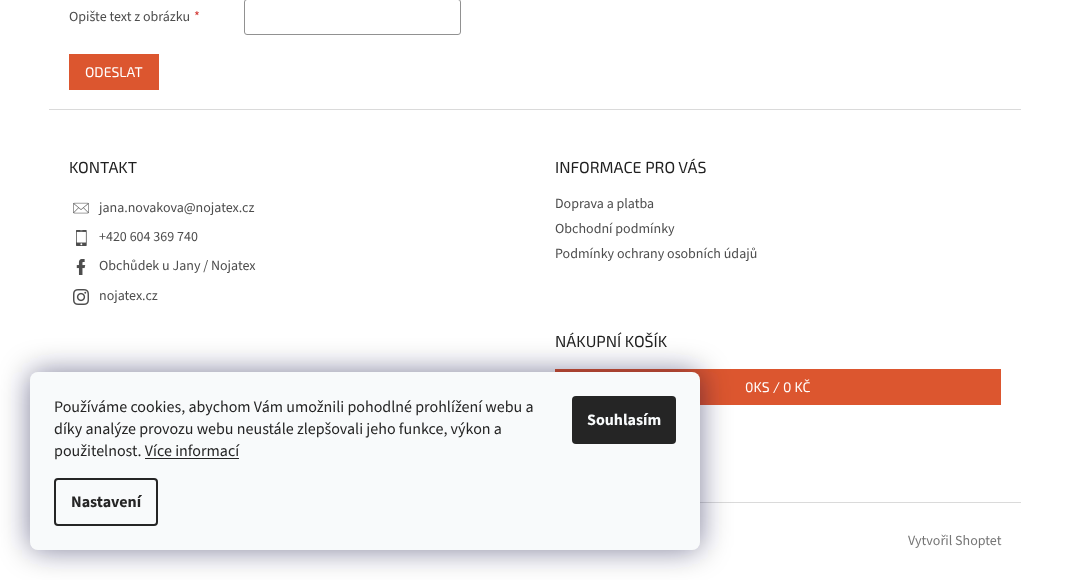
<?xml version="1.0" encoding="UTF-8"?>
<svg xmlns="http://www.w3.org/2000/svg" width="1085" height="580">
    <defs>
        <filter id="blur1" x="-50%" y="-200%" width="200%" height="500%"><feGaussianBlur stdDeviation="15"/></filter>
    </defs>
    <rect width="100%" height="100%" fill="#FFFFFF"/>
    <text x="69" y="21" font-family="'Source Sans 3'" font-size="14" fill="#4D4D4D">Opište text z obrázku</text>
    <text x="194" y="21" font-family="'Source Sans 3'" font-size="14" fill="#D33A36">*</text>
    <rect x="244.5" y="-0.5" width="216" height="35" rx="2.5" fill="none" stroke="#919191"/>
    <rect x="69" y="54" width="90" height="36" fill="#DC562F"/>
    <text x="85" y="77" font-family="'Exo 2'" font-size="14" fill="#FFFFFF">ODESLAT</text>
    <rect x="49" y="109" width="972" height="1" fill="#DADADA"/>
    <text x="69" y="173" font-family="'Exo 2'" font-size="16" fill="#1F1F1F">KONTAKT</text>
    <image x="73" y="202" width="16" height="12" href="img_01.png"/>
    <text x="99" y="212" font-family="'Source Sans 3'" font-size="14" fill="#4D4D4D">jana.novakova@nojatex.cz</text>
    <image x="76" y="230" width="11" height="16" href="img_02.png"/>
    <text x="99" y="241" font-family="'Source Sans 3'" font-size="14" fill="#4D4D4D">+420 604 369 740</text>
    <image x="76" y="259" width="10" height="16" href="img_03.png"/>
    <text x="99" y="270" font-family="'Source Sans 3'" font-size="14" fill="#4D4D4D">Obchůdek u Jany / Nojatex</text>
    <image x="73" y="289" width="16" height="16" href="img_04.png"/>
    <text x="99" y="300" font-family="'Source Sans 3'" font-size="14" fill="#4D4D4D">nojatex.cz</text>
    <text x="555" y="173" font-family="'Exo 2'" font-size="16" fill="#1F1F1F">INFORMACE PRO VÁS</text>
    <text font-family="'Source Sans 3'" font-size="14" fill="#4D4D4D">
        <tspan x="555" y="208">Doprava a platba</tspan>
        <tspan x="555" y="233">Obchodní podmínky</tspan>
        <tspan x="555" y="258">Podmínky ochrany osobních údajů</tspan>
    </text>
    <text x="555" y="347" font-family="'Exo 2'" font-size="16" fill="#1F1F1F">NÁKUPNÍ KOŠÍK</text>
    <rect x="555" y="369" width="446" height="36" fill="#DC562F"/>
    <text x="745" y="392" font-family="'Exo 2'" font-size="14" fill="#FFFFFF">0KS / 0 KČ</text>
    <rect x="700" y="502" width="321" height="1" fill="#DADADA"/>
    <text x="908" y="545" font-family="'Source Sans 3'" font-size="14" fill="#767676">Vytvořil Shoptet</text>
    <rect x="30" y="372" width="670" height="178" rx="8" fill="#1B1939" fill-opacity="0.5" filter="url(#blur1)"/>
    <rect x="30" y="372" width="670" height="178" rx="8" fill="#F8FAFB"/>
    <text font-family="'Source Sans 3'" font-size="16" fill="#252525">
        <tspan x="54" y="412">Používáme cookies, abychom Vám umožnili pohodlné prohlížení webu a</tspan>
        <tspan x="54" y="434">díky analýze provozu webu neustále zlepšovali jeho funkce, výkon a</tspan>
        <tspan x="54" y="456">použitelnost. Více informací</tspan>
    </text>
    <rect x="145" y="458" width="94" height="1" fill="#252525"/>
    <rect x="55" y="479" width="102" height="46" rx="3" fill="none" stroke="#252525" stroke-width="2"/>
    <text x="71" y="507" font-family="'Source Sans 3'" font-size="16" font-weight="700" fill="#252525">Nastavení</text>
    <rect x="572" y="396" width="104" height="48" rx="4" fill="#252525"/>
    <text x="587" y="425" font-family="'Source Sans 3'" font-size="16" font-weight="700" fill="#F8FAFB">Souhlasím</text>
</svg>
